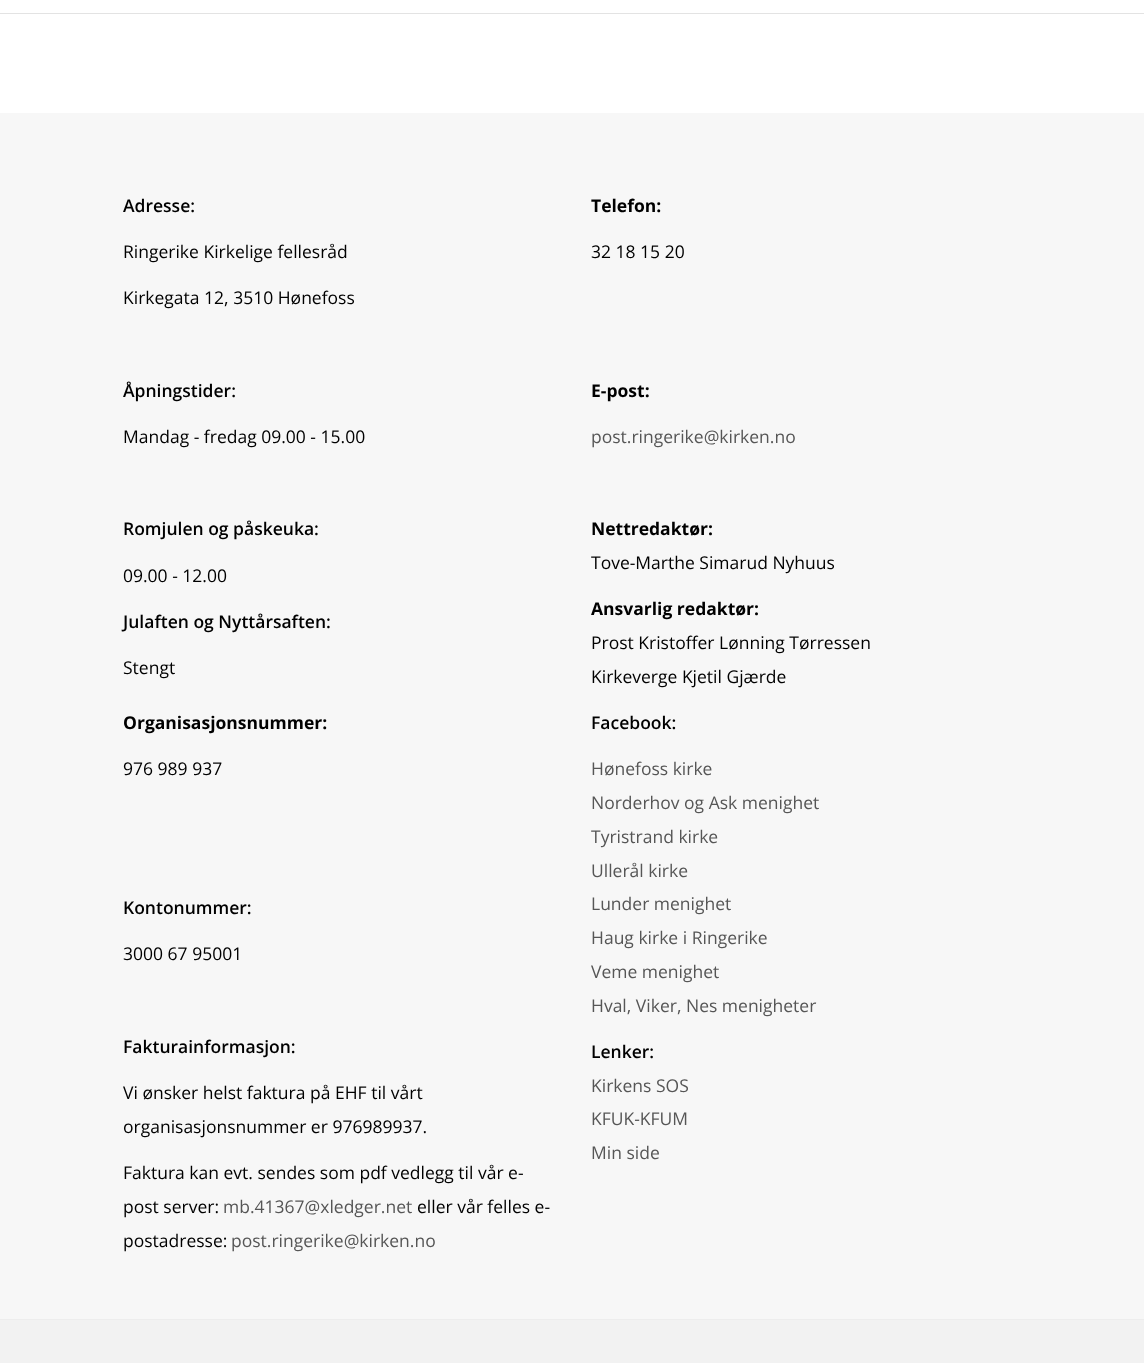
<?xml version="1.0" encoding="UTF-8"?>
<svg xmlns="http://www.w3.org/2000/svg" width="1144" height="1363">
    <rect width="100%" height="100%" fill="#FFFFFF"/>
    <rect x="0" y="13" width="1144" height="1" fill="#E3E3E3"/>
    <rect x="0" y="113" width="1144" height="1206" fill="#F7F7F7"/>
    <text x="123" y="212" font-family="Open Sans" font-size="17.5" font-weight="600" fill="#000000">Adresse:</text>
    <text x="123" y="258" font-family="Open Sans" font-size="17.5" fill="#000000">Ringerike Kirkelige fellesråd</text>
    <text x="123" y="304" font-family="Open Sans" font-size="17.5" fill="#000000">Kirkegata 12, 3510 Hønefoss</text>
    <text x="123" y="397" font-family="Open Sans" font-size="17.5" font-weight="600" fill="#000000">Åpningstider:</text>
    <text x="123" y="443" font-family="Open Sans" font-size="17.5" fill="#000000">Mandag - fredag 09.00 - 15.00</text>
    <text x="123" y="535" font-family="Open Sans" font-size="17.5" font-weight="600" fill="#000000">Romjulen og påskeuka:</text>
    <text x="123" y="582" font-family="Open Sans" font-size="17.5" fill="#000000">09.00 - 12.00</text>
    <text x="123" y="628" font-family="Open Sans" font-size="17.5" font-weight="600" fill="#000000">Julaften og Nyttårsaften:</text>
    <text x="123" y="674" font-family="Open Sans" font-size="17.5" fill="#000000">Stengt</text>
    <text x="591" y="212" font-family="Open Sans" font-size="17.5" font-weight="700" fill="#000000">Telefon:</text>
    <text x="591" y="258" font-family="Open Sans" font-size="17.5" fill="#000000">32 18 15 20</text>
    <text x="591" y="397" font-family="Open Sans" font-size="17.5" font-weight="700" fill="#000000">E-post:</text>
    <text x="591" y="443" font-family="Open Sans" font-size="17.5" fill="#565656">post.ringerike@kirken.no</text>
    <text x="591" y="535" font-family="Open Sans" font-size="17.5" font-weight="700" fill="#000000">Nettredaktør:</text>
    <text x="591" y="569" font-family="Open Sans" font-size="17.5" fill="#000000">Tove-Marthe Simarud Nyhuus</text>
    <text x="591" y="615" font-family="Open Sans" font-size="17.5" font-weight="700" fill="#000000">Ansvarlig redaktør:</text>
    <text font-family="Open Sans" font-size="17.5" fill="#000000">
        <tspan x="591" y="649">Prost Kristoffer Lønning Tørressen</tspan>
        <tspan x="591" y="683">Kirkeverge Kjetil Gjærde</tspan>
    </text>
    <text x="123" y="729" font-family="Open Sans" font-size="17.5" font-weight="700" fill="#000000">Organisasjonsnummer:</text>
    <text x="123" y="775" font-family="Open Sans" font-size="17.5" fill="#000000">976 989 937</text>
    <text x="123" y="914" font-family="Open Sans" font-size="17.5" font-weight="600" fill="#000000">Kontonummer:</text>
    <text x="123" y="960" font-family="Open Sans" font-size="17.5" fill="#000000">3000 67 95001</text>
    <text x="123" y="1053" font-family="Open Sans" font-size="17.5" font-weight="600" fill="#000000">Fakturainformasjon:</text>
    <text font-family="Open Sans" font-size="17.5" fill="#000000">
        <tspan x="123" y="1099">Vi ønsker helst faktura på EHF til vårt</tspan>
        <tspan x="123" y="1133">organisasjonsnummer er 976989937.</tspan>
    </text>
    <text font-family="Open Sans" font-size="17.5" fill="#000000">
        <tspan x="123" y="1179">Faktura kan evt. sendes som pdf vedlegg til vår e-</tspan>
        <tspan x="123" y="1213">post server:</tspan>
    </text>
    <text x="223" y="1213" font-family="Open Sans" font-size="17.5" fill="#565656">mb.41367@xledger.net</text>
    <text x="417" y="1213" font-family="Open Sans" font-size="17.5" fill="#000000">eller vår felles e-</text>
    <text x="123" y="1247" font-family="Open Sans" font-size="17.5" fill="#000000">postadresse:</text>
    <text x="231" y="1247" font-family="Open Sans" font-size="17.5" fill="#565656">post.ringerike@kirken.no</text>
    <text x="591" y="729" font-family="Open Sans" font-size="17.5" font-weight="600" fill="#000000">Facebook:</text>
    <text font-family="Open Sans" font-size="17.5" fill="#565656">
        <tspan x="591" y="775">Hønefoss kirke</tspan>
        <tspan x="591" y="809">Norderhov og Ask menighet</tspan>
        <tspan x="591" y="843">Tyristrand kirke</tspan>
        <tspan x="591" y="877">Ullerål kirke</tspan>
        <tspan x="591" y="910">Lunder menighet</tspan>
        <tspan x="591" y="944">Haug kirke i Ringerike</tspan>
        <tspan x="591" y="978">Veme menighet</tspan>
        <tspan x="591" y="1012">Hval, Viker, Nes menigheter</tspan>
    </text>
    <text x="591" y="1058" font-family="Open Sans" font-size="17.5" font-weight="600" fill="#000000">Lenker:</text>
    <text font-family="Open Sans" font-size="17.5" fill="#565656">
        <tspan x="591" y="1092">Kirkens SOS</tspan>
        <tspan x="591" y="1125">KFUK-KFUM</tspan>
        <tspan x="591" y="1159">Min side</tspan>
    </text>
    <rect x="0" y="1320" width="1144" height="43" fill="#F2F2F2"/>
    <rect x="0" y="1319" width="1144" height="1" fill="#EDEDED"/>
</svg>
